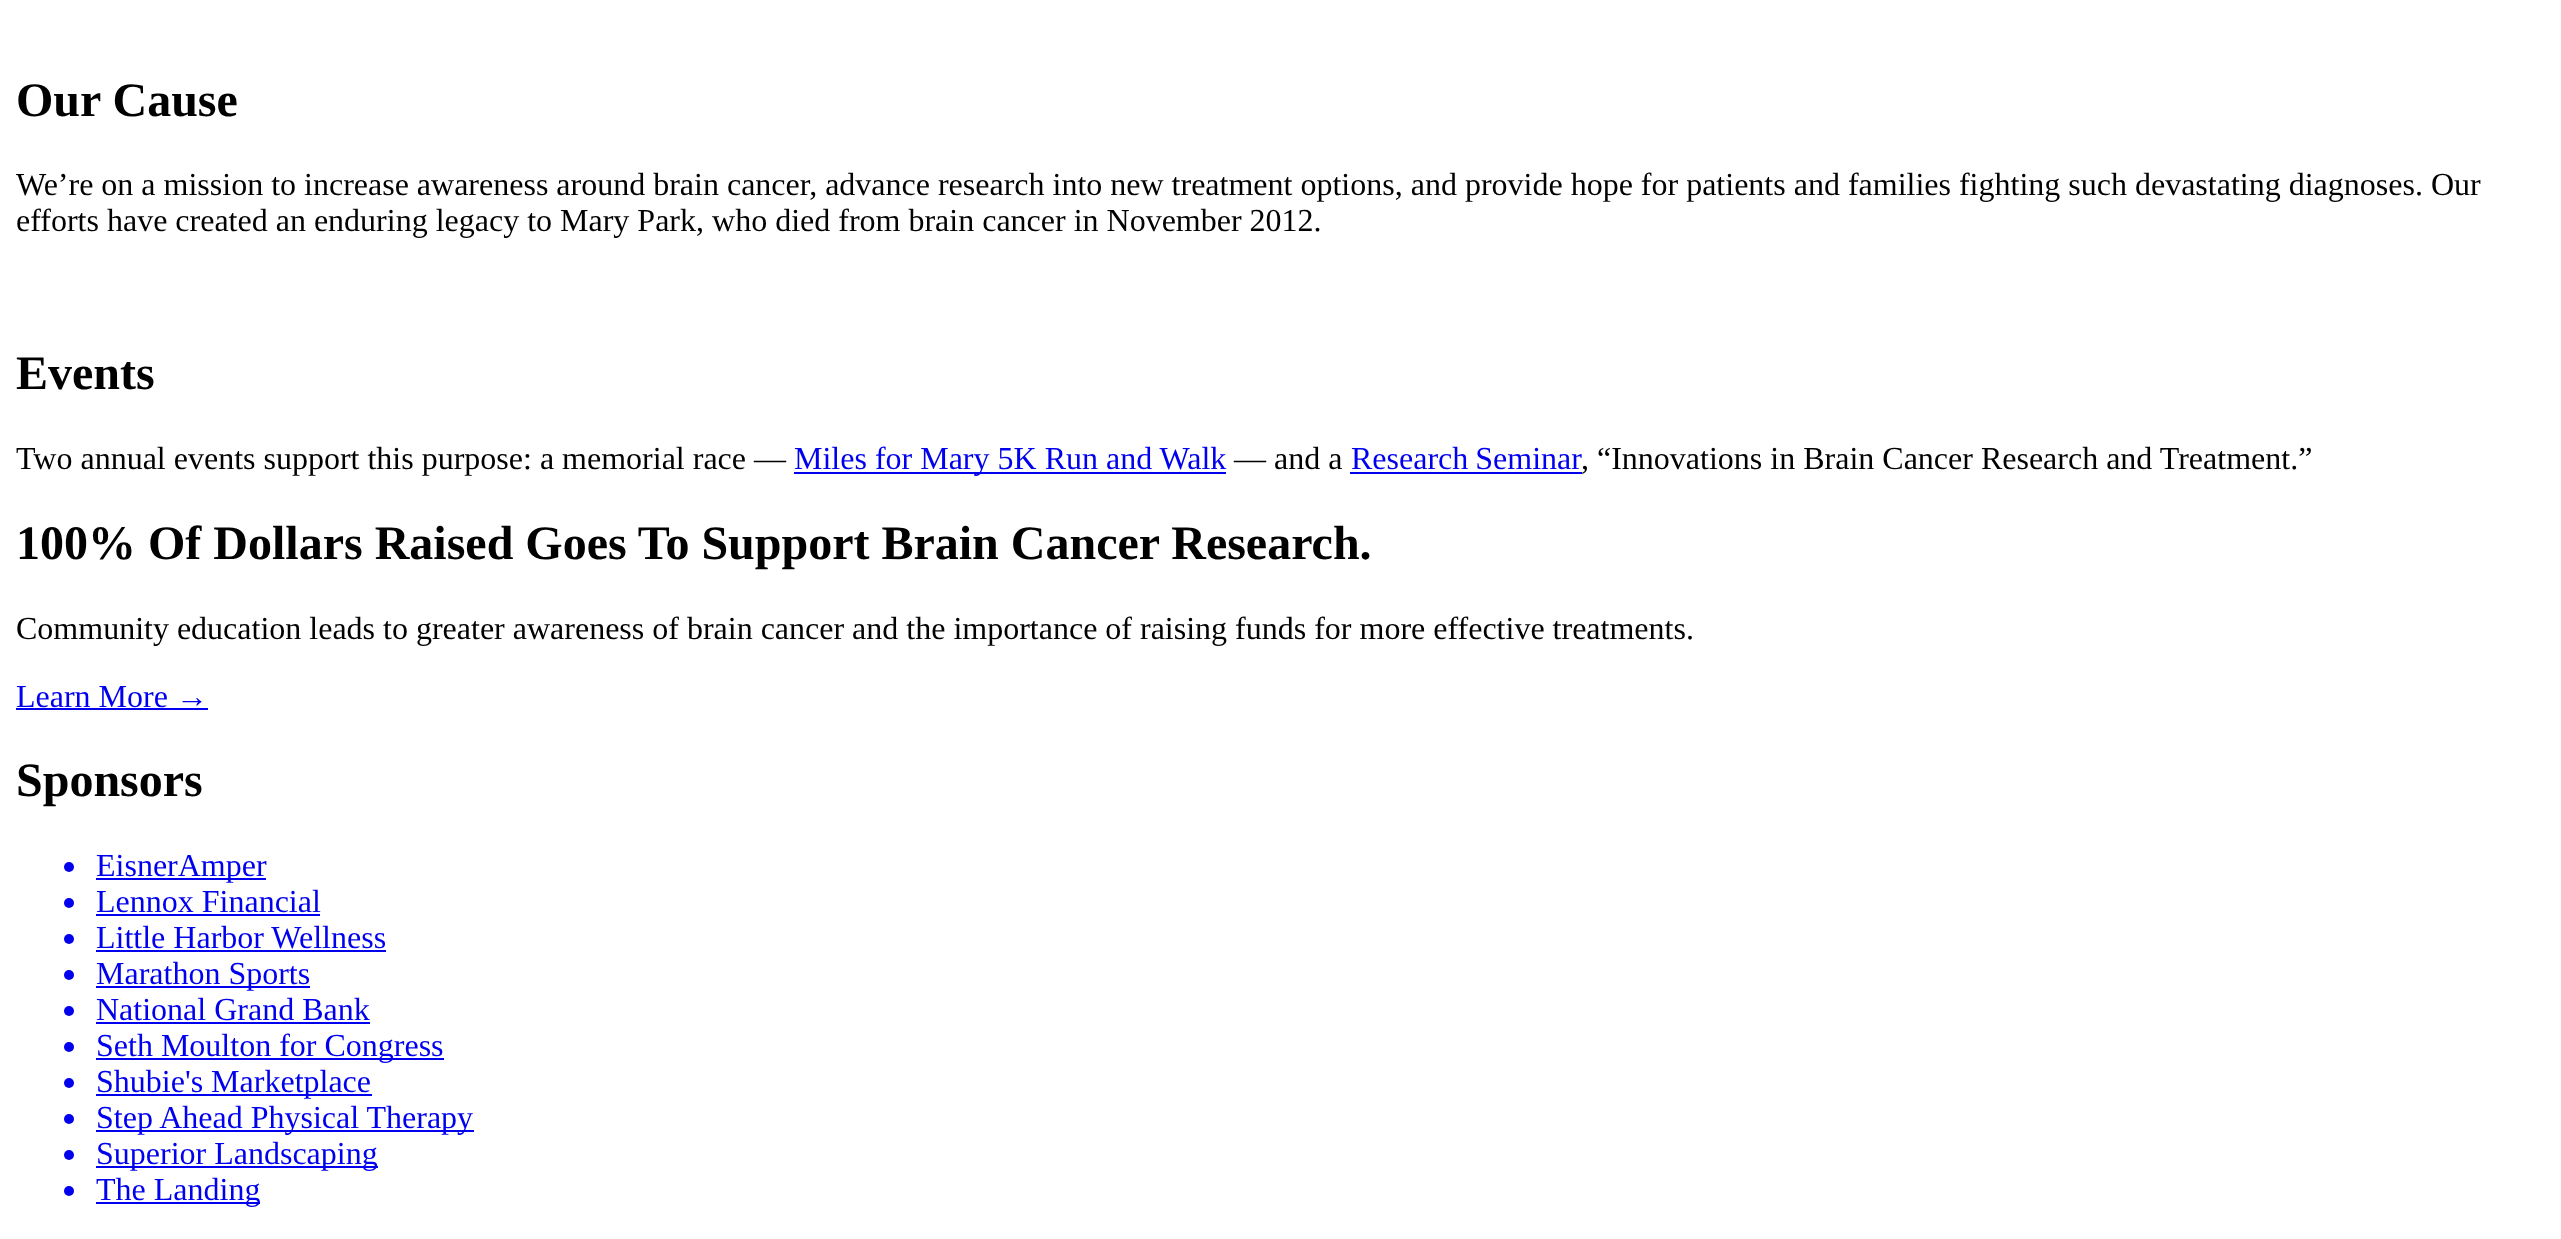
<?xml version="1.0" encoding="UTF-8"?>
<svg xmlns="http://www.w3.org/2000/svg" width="2561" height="1239">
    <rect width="100%" height="100%" fill="#FFFFFF"/>
    <text x="16" y="116" font-family="Liberation Serif" font-size="48" font-weight="700" fill="#000000">Our Cause</text>
    <text font-family="Liberation Serif" font-size="32" fill="#000000">
        <tspan x="16" y="195">We’re on a mission to increase awareness around brain cancer, advance research into new treatment options, and provide hope for patients and families fighting such devastating diagnoses. Our</tspan>
        <tspan x="16" y="231">efforts have created an enduring legacy to Mary Park, who died from brain cancer in November 2012.</tspan>
    </text>
    <text x="16" y="389" font-family="Liberation Serif" font-size="48" font-weight="700" fill="#000000">Events</text>
    <text x="16" y="469" font-family="Liberation Serif" font-size="32" fill="#000000">Two annual events support this purpose: a memorial race —</text>
    <rect x="794" y="472" width="432" height="2" fill="#0000EE"/>
    <text x="794" y="469" font-family="Liberation Serif" font-size="32" fill="#0000EE">Miles for Mary 5K Run and Walk</text>
    <text x="1234" y="469" font-family="Liberation Serif" font-size="32" fill="#000000">— and a</text>
    <text x="1351" y="469" word-spacing="-1" font-family="Liberation Serif" font-size="32" fill="#0000EE">Research Seminar</text>
    <rect x="1350" y="472" width="232" height="2" fill="#0000EE"/>
    <text x="1581" y="469" font-family="Liberation Serif" font-size="32" fill="#000000">, “Innovations in Brain Cancer Research and Treatment.”</text>
    <text x="16" y="559" font-family="Liberation Serif" font-size="48" font-weight="700" fill="#000000">100% Of Dollars Raised Goes To Support Brain Cancer Research.</text>
    <text x="16" y="639" font-family="Liberation Serif" font-size="32" fill="#000000">Community education leads to greater awareness of brain cancer and the importance of raising funds for more effective treatments.</text>
    <text x="16" y="707" font-family="Liberation Serif" font-size="32" fill="#0000EE">Learn More →</text>
    <rect x="16" y="708" width="192" height="2" fill="#0000EE"/>
    <text x="16" y="796" font-family="Liberation Serif" font-size="48" font-weight="700" fill="#000000">Sponsors</text>
    <circle cx="69" cy="867" r="5" fill="#0000EE"/>
    <rect x="96" y="878" width="170" height="2" fill="#0000EE"/>
    <text x="96" y="876" font-family="Liberation Serif" font-size="32" fill="#0000EE">EisnerAmper</text>
    <circle cx="69" cy="903" r="5" fill="#0000EE"/>
    <text x="96" y="912" font-family="Liberation Serif" font-size="32" fill="#0000EE">Lennox Financial</text>
    <rect x="96" y="914" width="224" height="2" fill="#0000EE"/>
    <circle cx="69" cy="939" r="5" fill="#0000EE"/>
    <text x="96" y="948" font-family="Liberation Serif" font-size="32" fill="#0000EE">Little Harbor Wellness</text>
    <rect x="96" y="950" width="290" height="2" fill="#0000EE"/>
    <circle cx="69" cy="975" r="5" fill="#0000EE"/>
    <rect x="96" y="986" width="214" height="2" fill="#0000EE"/>
    <text x="96" y="984" font-family="Liberation Serif" font-size="32" fill="#0000EE">Marathon Sports</text>
    <circle cx="69" cy="1011" r="5" fill="#0000EE"/>
    <text x="96" y="1020" font-family="Liberation Serif" font-size="32" fill="#0000EE">National Grand Bank</text>
    <rect x="96" y="1022" width="274" height="2" fill="#0000EE"/>
    <circle cx="69" cy="1047" r="5" fill="#0000EE"/>
    <rect x="96" y="1058" width="348" height="2" fill="#0000EE"/>
    <text x="96" y="1056" font-family="Liberation Serif" font-size="32" fill="#0000EE">Seth Moulton for Congress</text>
    <circle cx="69" cy="1083" r="5" fill="#0000EE"/>
    <rect x="96" y="1094" width="276" height="2" fill="#0000EE"/>
    <text x="96" y="1092" font-family="Liberation Serif" font-size="32" fill="#0000EE">Shubie's Marketplace</text>
    <circle cx="69" cy="1119" r="5" fill="#0000EE"/>
    <rect x="96" y="1130" width="378" height="2" fill="#0000EE"/>
    <text x="96" y="1128" font-family="Liberation Serif" font-size="32" fill="#0000EE">Step Ahead Physical Therapy</text>
    <circle cx="69" cy="1155" r="5" fill="#0000EE"/>
    <rect x="96" y="1166" width="282" height="2" fill="#0000EE"/>
    <text x="96" y="1164" font-family="Liberation Serif" font-size="32" fill="#0000EE">Superior Landscaping</text>
    <circle cx="69" cy="1191" r="5" fill="#0000EE"/>
    <rect x="96" y="1202" width="164" height="2" fill="#0000EE"/>
    <text x="96" y="1200" font-family="Liberation Serif" font-size="32" fill="#0000EE">The Landing</text>
</svg>
